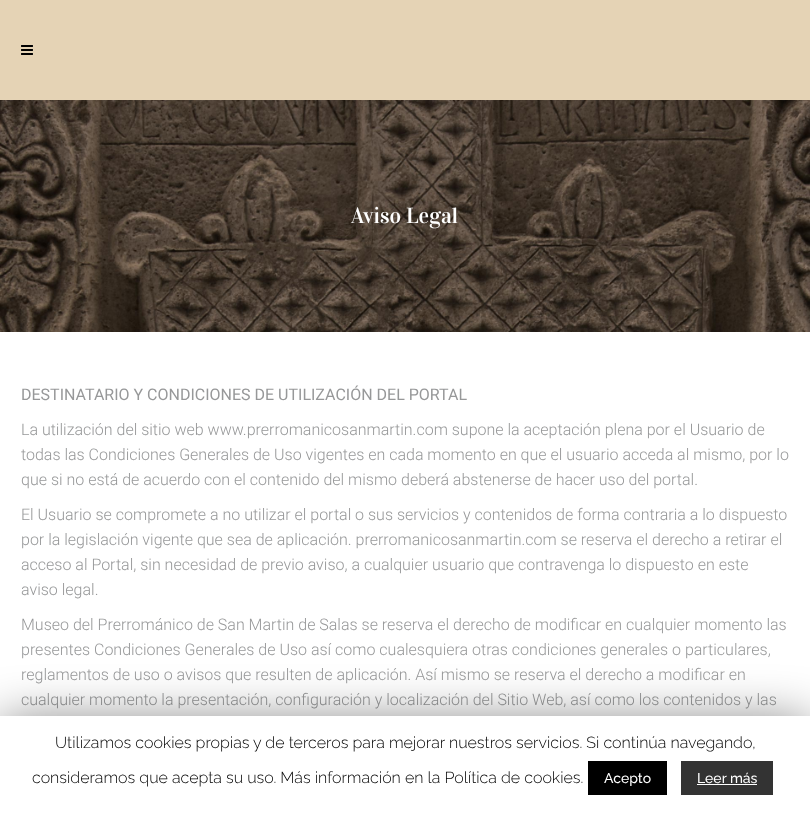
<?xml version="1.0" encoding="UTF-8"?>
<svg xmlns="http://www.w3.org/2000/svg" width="810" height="813">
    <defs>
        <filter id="blur1" x="-50%" y="-200%" width="200%" height="500%"><feGaussianBlur stdDeviation="25"/></filter>
    </defs>
    <rect width="100%" height="100%" fill="#FFFFFF"/>
    <rect x="0" y="0" width="810" height="100" fill="#E5D3B5"/>
    <image x="21" y="45" width="12" height="10" href="img_01.png"/>
    <image x="0" y="100" width="810" height="232" href="img_02.png"/>
    <text x="351" y="223" font-family="Vidaloka" font-size="22" fill="#FFFFFF">Aviso Legal</text>
    <text x="21" y="400" font-family="Roboto" font-size="16" fill="#979899">DESTINATARIO Y CONDICIONES DE UTILIZACIÓN DEL PORTAL</text>
    <text font-family="Roboto" font-size="16" font-weight="300" fill="#979899">
        <tspan x="21" y="435">La utilización del sitio web www.prerromanicosanmartin.com supone la aceptación plena por el Usuario de</tspan>
        <tspan x="21" y="460">todas las Condiciones Generales de Uso vigentes en cada momento en que el usuario acceda al mismo, por lo</tspan>
        <tspan x="21" y="485">que si no está de acuerdo con el contenido del mismo deberá abstenerse de hacer uso del portal.</tspan>
    </text>
    <text font-family="Roboto" font-size="16" font-weight="300" fill="#979899">
        <tspan x="21" y="520">El Usuario se compromete a no utilizar el portal o sus servicios y contenidos de forma contraria a lo dispuesto</tspan>
        <tspan x="21" y="545">por la legislación vigente que sea de aplicación. prerromanicosanmartin.com se reserva el derecho a retirar el</tspan>
        <tspan x="21" y="570">acceso al Portal, sin necesidad de previo aviso, a cualquier usuario que contravenga lo dispuesto en este</tspan>
        <tspan x="21" y="595">aviso legal.</tspan>
    </text>
    <text font-family="Roboto" font-size="16" font-weight="300" fill="#979899">
        <tspan x="21" y="630">Museo del Prerrománico de San Martin de Salas se reserva el derecho de modificar en cualquier momento las</tspan>
        <tspan x="21" y="655">presentes Condiciones Generales de Uso así como cualesquiera otras condiciones generales o particulares,</tspan>
        <tspan x="21" y="680">reglamentos de uso o avisos que resulten de aplicación. Así mismo se reserva el derecho a modificar en</tspan>
        <tspan x="21" y="705">cualquier momento la presentación, configuración y localización del Sitio Web, así como los contenidos y las</tspan>
    </text>
    <rect x="0" y="721" width="810" height="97" fill="#000000" fill-opacity="0.5" filter="url(#blur1)"/>
    <rect x="0" y="716" width="810" height="97" fill="#FFFFFF"/>
    <text x="55" y="748" font-family="Raleway" font-size="16" font-weight="300" fill="#000000">Utilizamos cookies propias y de terceros para mejorar nuestros servicios. Si continúa navegando,</text>
    <text x="32" y="783" font-family="Raleway" font-size="16" font-weight="300" fill="#000000">consideramos que acepta su uso. Más información en la Política de cookies.</text>
    <rect x="588" y="761" width="79" height="34" fill="#000000"/>
    <text x="604" y="783" font-family="Raleway" font-size="14" font-weight="500" fill="#FFFFFF">Acepto</text>
    <rect x="681" y="761" width="92" height="34" fill="#333333"/>
    <text x="697" y="783" font-family="Raleway" font-size="14" font-weight="500" fill="#FFFFFF">Leer más</text>
    <rect x="697" y="784" width="60" height="1" fill="#FFFFFF"/>
</svg>
